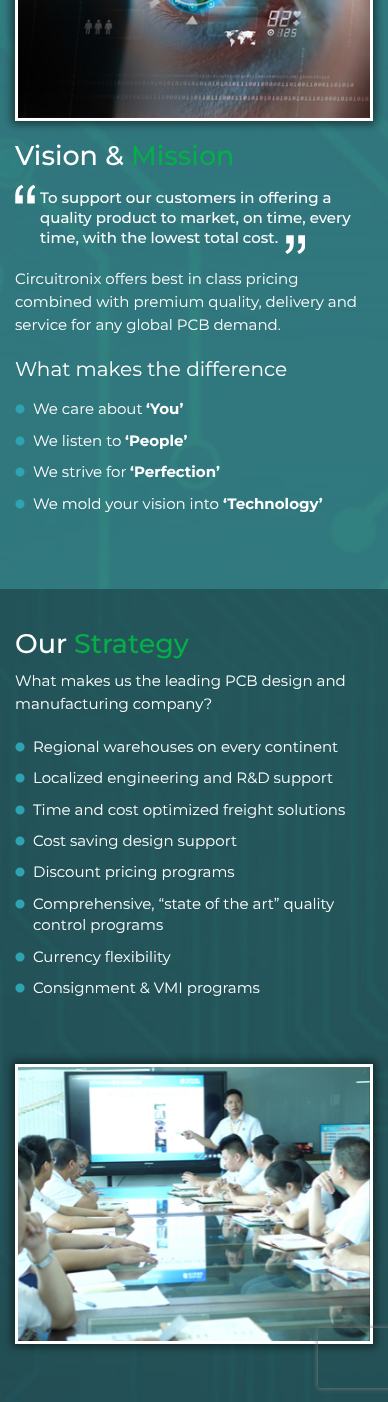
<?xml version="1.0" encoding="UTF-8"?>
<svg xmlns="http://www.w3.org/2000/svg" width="388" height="1402">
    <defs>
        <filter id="blur1" x="-50%" y="-200%" width="200%" height="500%"><feGaussianBlur stdDeviation="4.5"/></filter>
        <clipPath id="clip1"><path d="M 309 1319 H 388 V 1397 H 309 Z M 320 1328 H 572 C 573 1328 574 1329 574 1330 V 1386 C 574 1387 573 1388 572 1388 H 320 C 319 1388 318 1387 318 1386 V 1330 C 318 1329 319 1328 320 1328 Z" clip-rule="evenodd"/></clipPath>
        <filter id="blur2" x="-50%" y="-200%" width="200%" height="500%"><feGaussianBlur stdDeviation="2.5"/></filter>
    </defs>
    <rect width="100%" height="100%" fill="#FFFFFF"/>
    <image x="0" y="0" width="388" height="589" href="img_01.png"/>
    <rect x="12" y="-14" width="364" height="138" fill="#000000" fill-opacity="0.52" filter="url(#blur1)"/>
    <rect x="16.5" y="-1.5" width="355" height="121" fill="none" stroke="#FFFFFF" stroke-width="3"/>
    <image x="18" y="0" width="352" height="118" href="img_02.png"/>
    <text x="15" y="165" font-family="Montserrat" font-size="27" font-weight="500" fill="#FFFFFF">Vision &amp;</text>
    <text x="131" y="165" font-family="Montserrat" font-size="27" font-weight="500" fill="#05AE49">Mission</text>
    <image x="15" y="184" width="20" height="20" href="img_03.png"/>
    <text font-family="Montserrat" font-size="15" font-weight="500" fill="#FFFFFF">
        <tspan x="40" y="203">To support our customers in offering a</tspan>
        <tspan x="40" y="223">quality product to market, on time, every</tspan>
        <tspan x="40" y="243">time, with the lowest total cost.</tspan>
    </text>
    <image x="285" y="235" width="20" height="19" href="img_04.png"/>
    <text font-family="Montserrat" font-size="15" fill="#FFFFFF">
        <tspan x="15" y="284">Circuitronix offers best in class pricing</tspan>
        <tspan x="15" y="307">combined with premium quality, delivery and</tspan>
        <tspan x="15" y="330">service for any global PCB demand.</tspan>
    </text>
    <text x="15" y="376" font-family="Montserrat" font-size="20" fill="#FFFFFF">What makes the difference</text>
    <image x="15" y="404" width="10" height="10" href="img_05.png"/>
    <text x="33" y="414" font-family="Montserrat" font-size="15" fill="#FFFFFF">We care about</text>
    <text x="146" y="414" font-family="Montserrat" font-size="15" font-weight="700" fill="#FFFFFF">‘You’</text>
    <image x="15" y="436" width="10" height="10" href="img_06.png"/>
    <text x="33" y="446" font-family="Montserrat" font-size="15" fill="#FFFFFF">We listen to</text>
    <text x="125" y="446" font-family="Montserrat" font-size="15" font-weight="700" fill="#FFFFFF">‘People’</text>
    <image x="15" y="467" width="10" height="10" href="img_07.png"/>
    <text x="33" y="477" font-family="Montserrat" font-size="15" fill="#FFFFFF">We strive for</text>
    <text x="130" y="477" font-family="Montserrat" font-size="15" font-weight="700" fill="#FFFFFF">‘Perfection’</text>
    <image x="15" y="499" width="10" height="10" href="img_08.png"/>
    <text x="33" y="509" font-family="Montserrat" font-size="15" fill="#FFFFFF">We mold your vision into</text>
    <text x="223" y="509" font-family="Montserrat" font-size="15" font-weight="700" fill="#FFFFFF">‘Technology’</text>
    <image x="0" y="589" width="388" height="813" href="img_09.png"/>
    <text x="15" y="653" font-family="Montserrat" font-size="27" font-weight="500" fill="#FFFFFF">Our</text>
    <text x="74" y="653" font-family="Montserrat" font-size="27" font-weight="500" fill="#05AE49">Strategy</text>
    <text font-family="Montserrat" font-size="15" fill="#FFFFFF">
        <tspan x="15" y="686">What makes us the leading PCB design and</tspan>
        <tspan x="15" y="709">manufacturing company?</tspan>
    </text>
    <image x="15" y="742" width="10" height="10" href="img_10.png"/>
    <text x="33" y="752" font-family="Montserrat" font-size="15" fill="#FFFFFF">Regional warehouses on every continent</text>
    <image x="15" y="773" width="10" height="10" href="img_10.png"/>
    <text x="33" y="783" font-family="Montserrat" font-size="15" fill="#FFFFFF">Localized engineering and R&amp;D support</text>
    <image x="15" y="805" width="10" height="10" href="img_11.png"/>
    <text x="33" y="815" font-family="Montserrat" font-size="15" fill="#FFFFFF">Time and cost optimized freight solutions</text>
    <image x="15" y="836" width="10" height="10" href="img_12.png"/>
    <text x="33" y="846" font-family="Montserrat" font-size="15" fill="#FFFFFF">Cost saving design support</text>
    <image x="15" y="867" width="10" height="10" href="img_13.png"/>
    <text x="33" y="877" font-family="Montserrat" font-size="15" fill="#FFFFFF">Discount pricing programs</text>
    <image x="15" y="899" width="10" height="10" href="img_14.png"/>
    <text font-family="Montserrat" font-size="15" fill="#FFFFFF">
        <tspan x="33" y="909">Comprehensive, “state of the art” quality</tspan>
        <tspan x="33" y="930">control programs</tspan>
    </text>
    <image x="15" y="952" width="10" height="10" href="img_15.png"/>
    <text x="33" y="962" font-family="Montserrat" font-size="15" fill="#FFFFFF">Currency flexibility</text>
    <image x="15" y="983" width="10" height="10" href="img_15.png"/>
    <text x="33" y="993" font-family="Montserrat" font-size="15" fill="#FFFFFF">Consignment &amp; VMI programs</text>
    <rect x="12" y="1061" width="364" height="286" fill="#000000" fill-opacity="0.52" filter="url(#blur1)"/>
    <rect x="16.5" y="1065.5" width="355" height="277" fill="none" stroke="#FFFFFF" stroke-width="3"/>
    <image x="18" y="1067" width="352" height="274" href="img_16.png"/>
    <g clip-path="url(#clip1)">
        <rect x="318" y="1328" width="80" height="60" rx="2" fill="#808080" filter="url(#blur2)"/>
    </g>
</svg>
